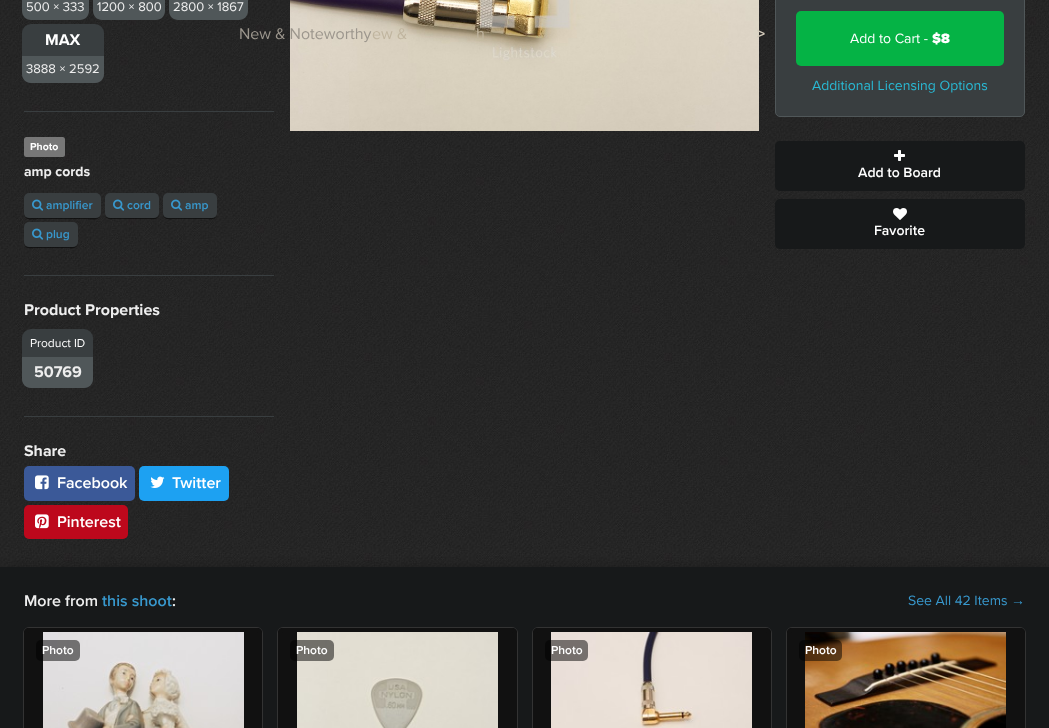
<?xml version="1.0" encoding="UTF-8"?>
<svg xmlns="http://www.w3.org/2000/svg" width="1049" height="728">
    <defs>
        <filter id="blur1" x="-50%" y="-200%" width="200%" height="500%"><feGaussianBlur stdDeviation="8"/></filter>
    </defs>
    <rect width="100%" height="100%" fill="#FFFFFF"/>
    <image x="0" y="0" width="1049" height="567" href="img_01.png"/>
    <rect x="24" y="111" width="250" height="1" fill="#393E40"/>
    <path d="M 22 -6 H 89 V 11 C 89 16 85 20 80 20 H 31 C 26 20 22 16 22 11 Z" fill="#505759"/>
    <text x="26" y="11" font-family="Proxima Nova" font-size="13" fill="#EEEEEE">500 × 333</text>
    <path d="M 93 -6 H 165 V 11 C 165 16 161 20 156 20 H 102 C 97 20 93 16 93 11 Z" fill="#505759"/>
    <text x="97" y="11" font-family="Proxima Nova" font-size="13" fill="#EEEEEE">1200 × 800</text>
    <path d="M 169 -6 H 248 V 11 C 248 16 244 20 239 20 H 178 C 173 20 169 16 169 11 Z" fill="#505759"/>
    <text x="173" y="11" font-family="Proxima Nova" font-size="13" fill="#EEEEEE">2800 × 1867</text>
    <rect x="22" y="24" width="82" height="59" rx="9" fill="#393E40"/>
    <text x="45" y="45" font-family="Proxima Nova" font-size="16" font-weight="700" fill="#FFFFFF">MAX</text>
    <path d="M 22 56 H 104 V 74 C 104 79 100 83 95 83 H 31 C 26 83 22 79 22 74 Z" fill="#505759"/>
    <text x="26" y="73" font-family="Proxima Nova" font-size="13" fill="#EEEEEE">3888 × 2592</text>
    <rect x="24" y="275" width="250" height="1" fill="#393E40"/>
    <rect x="24" y="137" width="41" height="20" rx="2.5" fill="#777777"/>
    <text x="30" y="150" font-family="Proxima Nova" font-size="10.5" font-weight="700" fill="#FFFFFF">Photo</text>
    <text x="24" y="176" font-family="Proxima Nova" font-size="14" font-weight="700" fill="#EEEEEE">amp cords</text>
    <path d="M 24 213 C 24 222 34 219 40 219 H 85 C 91 219 101 222 101 213 C 101 216 99 218 96 218 H 29 C 26 218 24 216 24 213 Z" fill="#000000" fill-opacity="0.5"/>
    <rect x="24" y="193" width="77" height="25" rx="5" fill="#393E40"/>
    <image x="32" y="199" width="12" height="12" href="img_02.png"/>
    <text x="46" y="209" font-family="Proxima Nova" font-size="12" font-weight="600" fill="#3898CD">amplifier</text>
    <path d="M 105 213 C 105 221 112 219 117 219 H 147 C 152 219 159 221 159 213 C 159 216 157 218 154 218 H 110 C 107 218 105 216 105 213 Z" fill="#000000" fill-opacity="0.5"/>
    <rect x="105" y="193" width="54" height="25" rx="5" fill="#393E40"/>
    <image x="113" y="199" width="12" height="12" href="img_02.png"/>
    <text x="127" y="209" font-family="Proxima Nova" font-size="12" font-weight="600" fill="#3898CD">cord</text>
    <path d="M 163 213 C 163 221 170 219 175 219 H 205 C 210 219 217 221 217 213 C 217 216 215 218 212 218 H 168 C 165 218 163 216 163 213 Z" fill="#000000" fill-opacity="0.5"/>
    <rect x="163" y="193" width="54" height="25" rx="5" fill="#393E40"/>
    <image x="171" y="199" width="12" height="12" href="img_02.png"/>
    <text x="185" y="209" font-family="Proxima Nova" font-size="12" font-weight="600" fill="#3898CD">amp</text>
    <path d="M 24 242 C 24 250 31 248 36 248 H 66 C 71 248 78 250 78 242 C 78 245 76 247 73 247 H 29 C 26 247 24 245 24 242 Z" fill="#000000" fill-opacity="0.5"/>
    <rect x="24" y="222" width="54" height="25" rx="5" fill="#393E40"/>
    <image x="32" y="228" width="12" height="12" href="img_02.png"/>
    <text x="46" y="238" font-family="Proxima Nova" font-size="12" font-weight="600" fill="#3898CD">plug</text>
    <rect x="24" y="416" width="250" height="1" fill="#393E40"/>
    <text x="24" y="315" font-family="Proxima Nova" font-size="16" font-weight="700" fill="#EEEEEE">Product Properties</text>
    <rect x="22" y="329" width="71" height="59" rx="9" fill="#393E40"/>
    <text x="30" y="347" font-family="Proxima Nova" font-size="12" fill="#FFFFFF">Product ID</text>
    <path d="M 22 357 H 93 V 379 C 93 384 89 388 84 388 H 31 C 26 388 22 384 22 379 Z" fill="#505759"/>
    <text x="34" y="377" font-family="Proxima Nova" font-size="16" font-weight="700" fill="#EEEEEE">50769</text>
    <text x="24" y="456" font-family="Proxima Nova" font-size="16" font-weight="700" fill="#EEEEEE">Share</text>
    <rect x="24" y="466" width="111" height="35" rx="5" fill="#3B5998"/>
    <image x="35" y="475" width="14" height="15" href="img_03.png"/>
    <text x="57" y="488" font-family="Proxima Nova" font-size="16" font-weight="600" fill="#FFFFFF">Facebook</text>
    <rect x="139" y="466" width="90" height="35" rx="5" fill="#1DA1F2"/>
    <image x="150" y="476" width="15" height="12" href="img_04.png"/>
    <text x="172" y="488" font-family="Proxima Nova" font-size="16" font-weight="600" fill="#FFFFFF">Twitter</text>
    <rect x="24" y="505" width="104" height="34" rx="5" fill="#BD081C"/>
    <image x="35" y="514" width="14" height="15" href="img_05.png"/>
    <text x="57" y="527" font-family="Proxima Nova" font-size="16" font-weight="600" fill="#FFFFFF">Pinterest</text>
    <image x="290" y="0" width="469" height="131" href="img_06.png"/>
    <rect x="775.5" y="-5.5" width="249" height="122" rx="4.5" fill="#393E40" stroke="#505759"/>
    <rect x="796" y="11" width="208" height="55" rx="5" fill="#05B345"/>
    <text x="850" y="43" font-family="Proxima Nova" font-size="14" fill="#FFFFFF">Add to Cart -</text>
    <text x="932" y="43" font-family="Proxima Nova" font-size="14" font-weight="900" fill="#FFFFFF">$8</text>
    <text x="812" y="90" font-family="Proxima Nova" font-size="14" fill="#29BAD5">Additional Licensing Options</text>
    <rect x="775" y="141" width="250" height="50" rx="5" fill="#17191A"/>
    <image x="894" y="150" width="11" height="11" href="img_07.png"/>
    <text x="858" y="177" font-family="Proxima Nova" font-size="14" font-weight="600" fill="#FFFFFF">Add to Board</text>
    <rect x="775" y="199" width="250" height="50" rx="5" fill="#17191A"/>
    <image x="893" y="208" width="14" height="12" href="img_08.png"/>
    <text x="874" y="235" font-family="Proxima Nova" font-size="14" font-weight="600" fill="#FFFFFF">Favorite</text>
    <rect x="2" y="570" width="1045" height="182" fill="#000000" fill-opacity="0.35" filter="url(#blur1)"/>
    <rect x="0" y="567" width="1049" height="161" fill="#17191A"/>
    <text x="24" y="606" font-family="Proxima Nova" font-size="16" font-weight="600" fill="#EEEEEE">More from</text>
    <text x="102" y="606" font-family="Proxima Nova" font-size="16" font-weight="600" fill="#3898CD">this shoot</text>
    <text x="172" y="606" font-family="Proxima Nova" font-size="16" font-weight="600" fill="#EEEEEE">:</text>
    <text x="908" y="605" font-family="Proxima Nova" font-size="14" fill="#3898CD">See All 42 Items</text>
    <text x="1011" y="605" font-family="Liberation Sans" font-size="14" fill="#3898CD">→</text>
    <rect x="23.5" y="627.5" width="239" height="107" rx="5.5" fill="none" stroke="#333333"/>
    <rect x="24" y="628" width="238" height="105" rx="5" fill="#111111"/>
    <image x="43" y="632" width="201" height="96" href="img_09.png"/>
    <rect x="26" y="630" width="234" height="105" rx="3" fill="none" stroke="#111111" stroke-width="4"/>
    <rect x="36" y="640" width="44" height="21" rx="5" fill="#000000" fill-opacity="0.5"/>
    <text x="42" y="654" font-family="Proxima Nova" font-size="12" font-weight="600" fill="#FFFFFF">Photo</text>
    <rect x="277.5" y="627.5" width="240" height="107" rx="5.5" fill="none" stroke="#333333"/>
    <rect x="278" y="628" width="239" height="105" rx="5" fill="#111111"/>
    <image x="297" y="632" width="201" height="96" href="img_10.png"/>
    <rect x="280" y="630" width="235" height="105" rx="3" fill="none" stroke="#111111" stroke-width="4"/>
    <rect x="290" y="640" width="44" height="21" rx="5" fill="#000000" fill-opacity="0.5"/>
    <text x="296" y="654" font-family="Proxima Nova" font-size="12" font-weight="600" fill="#FFFFFF">Photo</text>
    <rect x="532.5" y="627.5" width="239" height="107" rx="5.5" fill="none" stroke="#333333"/>
    <rect x="533" y="628" width="238" height="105" rx="5" fill="#111111"/>
    <image x="551" y="632" width="201" height="96" href="img_11.png"/>
    <rect x="535" y="630" width="234" height="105" rx="3" fill="none" stroke="#111111" stroke-width="4"/>
    <rect x="545" y="640" width="43" height="21" rx="5" fill="#000000" fill-opacity="0.5"/>
    <text x="551" y="654" font-family="Proxima Nova" font-size="12" font-weight="600" fill="#FFFFFF">Photo</text>
    <rect x="786.5" y="627.5" width="239" height="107" rx="5.5" fill="none" stroke="#333333"/>
    <rect x="787" y="628" width="238" height="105" rx="5" fill="#111111"/>
    <image x="805" y="632" width="201" height="96" href="img_12.png"/>
    <rect x="789" y="630" width="234" height="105" rx="3" fill="none" stroke="#111111" stroke-width="4"/>
    <rect x="799" y="640" width="43" height="21" rx="5" fill="#000000" fill-opacity="0.5"/>
    <text x="805" y="654" font-family="Proxima Nova" font-size="12" font-weight="600" fill="#FFFFFF">Photo</text>
    <text x="239" y="39" font-family="Proxima Nova" font-size="16" fill="#9C968D">New &amp; Noteworthy</text>
    <text x="372" y="39" font-family="Proxima Nova" font-size="16" fill="#C0B59F">ew &amp;</text>
    <text x="476" y="39" font-family="Proxima Nova" font-size="16" fill="#C0B59F">h</text>
    <text x="757" y="39" font-family="Proxima Nova" font-size="16" font-weight="700" fill="#D2C9BA">&gt;</text>
</svg>
